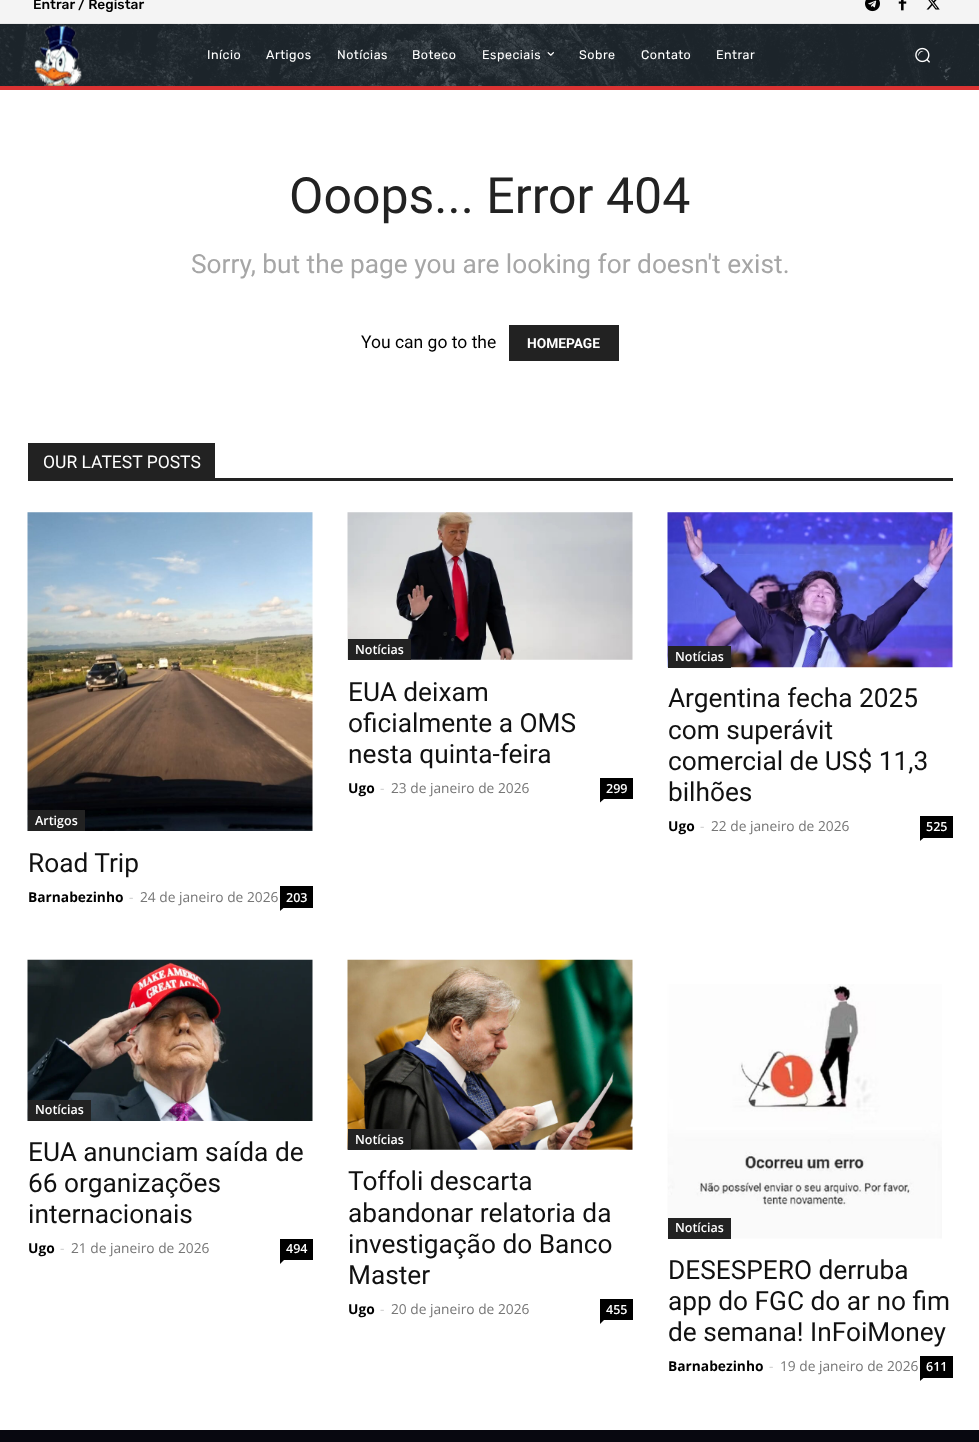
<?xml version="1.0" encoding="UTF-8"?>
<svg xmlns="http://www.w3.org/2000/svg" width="979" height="1442">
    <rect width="100%" height="100%" fill="#FFFFFF"/>
    <rect x="0" y="0" width="979" height="24" fill="#F4F4F4"/>
    <text x="33" y="9" font-family="Rubik" font-size="13.75" font-weight="500" fill="#000000">Entrar / Registar</text>
    <image x="865" y="0" width="15" height="12" href="img_01.png"/>
    <image x="898" y="0" width="9" height="11" href="img_02.png"/>
    <image x="926" y="0" width="14" height="10" href="img_03.png"/>
    <rect x="0" y="24" width="979" height="62" fill="#232D35"/>
    <image x="0" y="23" width="979" height="63" href="img_04.png"/>
    <image x="34" y="24" width="48" height="62" href="img_05.png"/>
    <text x="207" y="59" font-family="Rubik" font-size="12.5" letter-spacing="0.5" fill="#FFFFFF">Início</text>
    <text x="266" y="59" font-family="Rubik" font-size="12.5" letter-spacing="0.5" fill="#FFFFFF">Artigos</text>
    <text x="337" y="59" font-family="Rubik" font-size="12.5" letter-spacing="0.5" fill="#FFFFFF">Notícias</text>
    <text x="412" y="59" font-family="Rubik" font-size="12.5" letter-spacing="0.5" fill="#FFFFFF">Boteco</text>
    <text x="482" y="59" font-family="Rubik" font-size="12.5" letter-spacing="0.5" fill="#FFFFFF">Especiais</text>
    <image x="547" y="52" width="7" height="4" href="img_06.png"/>
    <text x="579" y="59" font-family="Rubik" font-size="12.5" letter-spacing="0.5" fill="#FFFFFF">Sobre</text>
    <text x="641" y="59" font-family="Rubik" font-size="12.5" letter-spacing="0.5" fill="#FFFFFF">Contato</text>
    <text x="716" y="59" font-family="Rubik" font-size="12.5" letter-spacing="0.5" fill="#FFFFFF">Entrar</text>
    <image x="915" y="47" width="15" height="16" href="img_07.png"/>
    <rect x="0" y="86" width="979" height="4" fill="#DD3333"/>
    <text x="289" y="213" font-family="Roboto" font-size="50" fill="#222222">Ooops... Error 404</text>
    <text x="191" y="273" font-family="Roboto" font-size="26.25" fill="#A6A6A6">Sorry, but the page you are looking for doesn't exist.</text>
    <text x="361" y="348" font-family="Roboto" font-size="17.5" fill="#000000">You can go to the</text>
    <rect x="509" y="325" width="110" height="36" fill="#222222"/>
    <text x="527" y="348" font-family="Roboto" font-size="13.75" font-weight="700" fill="#FFFFFF">HOMEPAGE</text>
    <rect x="28" y="478" width="925" height="3" fill="#222222"/>
    <rect x="28" y="443" width="187" height="35" fill="#222222"/>
    <text x="43" y="468" font-family="Roboto" font-size="17.5" fill="#FFFFFF">OUR LATEST POSTS</text>
    <image x="347" y="512" width="286" height="148" href="img_08.png"/>
    <rect x="348" y="639" width="63" height="21" fill="#222222"/>
    <text x="355" y="654" font-family="Open Sans" font-size="12.5" font-weight="600" fill="#FFFFFF">Notícias</text>
    <text font-family="Roboto" font-size="26.25" fill="#111111">
        <tspan x="348" y="701">EUA deixam</tspan>
        <tspan x="348" y="732">oficialmente a OMS</tspan>
        <tspan x="348" y="763">nesta quinta-feira</tspan>
    </text>
    <text x="348" y="793" font-family="Open Sans" font-size="13.75" font-weight="700" fill="#000000">Ugo</text>
    <text x="380" y="793" font-family="Open Sans" font-size="13.75" fill="#CCCCCC">-</text>
    <text x="391" y="793" font-family="Open Sans" font-size="13.75" fill="#767676">23 de janeiro de 2026</text>
    <rect x="600" y="778" width="33" height="21" fill="#000000"/>
    <text x="606" y="793" font-family="Open Sans" font-size="12.5" font-weight="600" fill="#FFFFFF">299</text>
    <path d="M 600 799 H 604 L 600 802.5 Z" fill="#000000"/>
    <image x="667" y="512" width="286" height="156" href="img_09.png"/>
    <rect x="668" y="646" width="63" height="22" fill="#222222"/>
    <text x="675" y="661" font-family="Open Sans" font-size="12.5" font-weight="600" fill="#FFFFFF">Notícias</text>
    <text font-family="Roboto" font-size="26.25" fill="#111111">
        <tspan x="668" y="707">Argentina fecha 2025</tspan>
        <tspan x="668" y="739">com superávit</tspan>
        <tspan x="668" y="770">comercial de US$ 11,3</tspan>
        <tspan x="668" y="801">bilhões</tspan>
    </text>
    <text x="668" y="831" font-family="Open Sans" font-size="13.75" font-weight="700" fill="#000000">Ugo</text>
    <text x="700" y="831" font-family="Open Sans" font-size="13.75" fill="#CCCCCC">-</text>
    <text x="711" y="831" font-family="Open Sans" font-size="13.75" fill="#767676">22 de janeiro de 2026</text>
    <rect x="920" y="816" width="33" height="22" fill="#000000"/>
    <text x="926" y="831" font-family="Open Sans" font-size="12.5" font-weight="600" fill="#FFFFFF">525</text>
    <path d="M 920 837.5 H 924 L 920 841 Z" fill="#000000"/>
    <image x="27" y="512" width="286" height="319" href="img_10.png"/>
    <rect x="28" y="810" width="57" height="21" fill="#222222"/>
    <text x="35" y="825" font-family="Open Sans" font-size="12.5" font-weight="600" fill="#FFFFFF">Artigos</text>
    <text x="28" y="872" font-family="Roboto" font-size="26.25" fill="#111111">Road Trip</text>
    <text x="28" y="902" font-family="Open Sans" font-size="13.75" font-weight="700" fill="#000000">Barnabezinho</text>
    <text x="129" y="902" font-family="Open Sans" font-size="13.75" fill="#CCCCCC">-</text>
    <text x="140" y="902" font-family="Open Sans" font-size="13.75" fill="#767676">24 de janeiro de 2026</text>
    <rect x="280" y="886" width="33" height="22" fill="#000000"/>
    <text x="286" y="902" font-family="Open Sans" font-size="12.5" font-weight="600" fill="#FFFFFF">203</text>
    <path d="M 280 907.5 H 284 L 280 911 Z" fill="#000000"/>
    <image x="27" y="959" width="286" height="162" href="img_11.png"/>
    <rect x="28" y="1100" width="63" height="21" fill="#222222"/>
    <text x="35" y="1114" font-family="Open Sans" font-size="12.5" font-weight="600" fill="#FFFFFF">Notícias</text>
    <text font-family="Roboto" font-size="26.25" fill="#111111">
        <tspan x="28" y="1161">EUA anunciam saída de</tspan>
        <tspan x="28" y="1192">66 organizações</tspan>
        <tspan x="28" y="1223">internacionais</tspan>
    </text>
    <text x="28" y="1253" font-family="Open Sans" font-size="13.75" font-weight="700" fill="#000000">Ugo</text>
    <text x="60" y="1253" font-family="Open Sans" font-size="13.75" fill="#CCCCCC">-</text>
    <text x="71" y="1253" font-family="Open Sans" font-size="13.75" fill="#767676">21 de janeiro de 2026</text>
    <rect x="280" y="1239" width="33" height="21" fill="#000000"/>
    <text x="286" y="1253" font-family="Open Sans" font-size="12.5" font-weight="600" fill="#FFFFFF">494</text>
    <path d="M 280 1260 H 284 L 280 1264 Z" fill="#000000"/>
    <image x="347" y="959" width="286" height="191" href="img_12.png"/>
    <rect x="348" y="1129" width="63" height="21" fill="#222222"/>
    <text x="355" y="1144" font-family="Open Sans" font-size="12.5" font-weight="600" fill="#FFFFFF">Notícias</text>
    <text font-family="Roboto" font-size="26.25" fill="#111111">
        <tspan x="348" y="1190">Toffoli descarta</tspan>
        <tspan x="348" y="1222">abandonar relatoria da</tspan>
        <tspan x="348" y="1253">investigação do Banco</tspan>
        <tspan x="348" y="1284">Master</tspan>
    </text>
    <text x="348" y="1314" font-family="Open Sans" font-size="13.75" font-weight="700" fill="#000000">Ugo</text>
    <text x="380" y="1314" font-family="Open Sans" font-size="13.75" fill="#CCCCCC">-</text>
    <text x="391" y="1314" font-family="Open Sans" font-size="13.75" fill="#767676">20 de janeiro de 2026</text>
    <rect x="600" y="1299" width="33" height="21" fill="#000000"/>
    <text x="606" y="1314" font-family="Open Sans" font-size="12.5" font-weight="600" fill="#FFFFFF">455</text>
    <path d="M 600 1320 H 604 L 600 1324 Z" fill="#000000"/>
    <image x="667" y="984" width="275" height="255" href="img_13.png"/>
    <rect x="668" y="1218" width="63" height="21" fill="#222222"/>
    <text x="675" y="1232" font-family="Open Sans" font-size="12.5" font-weight="600" fill="#FFFFFF">Notícias</text>
    <text font-family="Roboto" font-size="26.25" fill="#111111">
        <tspan x="668" y="1279">DESESPERO derruba</tspan>
        <tspan x="668" y="1310">app do FGC do ar no fim</tspan>
        <tspan x="668" y="1341">de semana! InFoiMoney</tspan>
    </text>
    <text x="668" y="1371" font-family="Open Sans" font-size="13.75" font-weight="700" fill="#000000">Barnabezinho</text>
    <text x="769" y="1371" font-family="Open Sans" font-size="13.75" fill="#CCCCCC">-</text>
    <text x="780" y="1371" font-family="Open Sans" font-size="13.75" fill="#767676">19 de janeiro de 2026</text>
    <rect x="920" y="1356" width="33" height="22" fill="#000000"/>
    <text x="926" y="1371" font-family="Open Sans" font-size="12.5" font-weight="600" fill="#FFFFFF">611</text>
    <path d="M 920 1377.5 H 924 L 920 1381 Z" fill="#000000"/>
    <rect x="0" y="1430" width="979" height="12" fill="#080810"/>
</svg>
